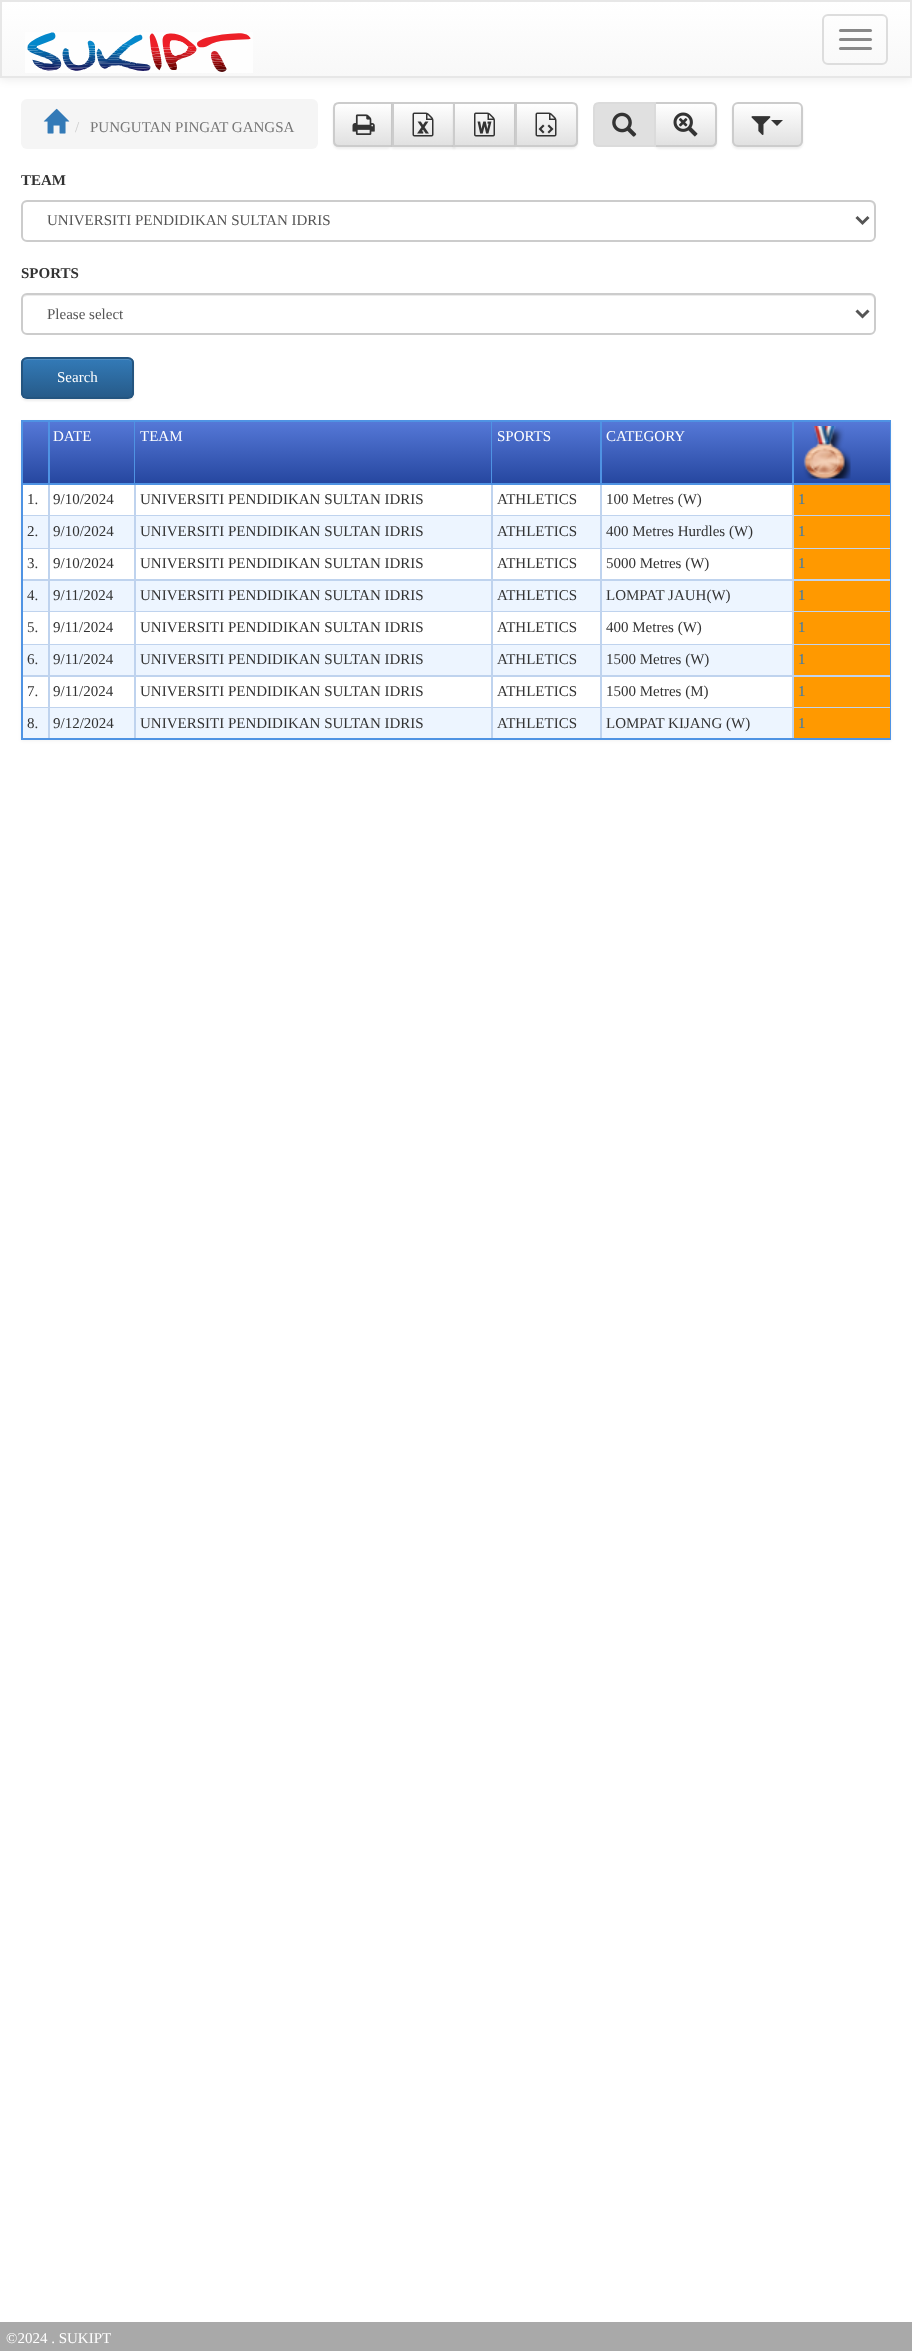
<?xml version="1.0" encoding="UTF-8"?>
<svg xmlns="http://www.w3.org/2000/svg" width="912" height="2351">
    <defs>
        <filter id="blur1" x="-50%" y="-200%" width="200%" height="500%"><feGaussianBlur stdDeviation="4"/></filter>
        <linearGradient id="g1" gradientUnits="userSpaceOnUse" x1="456" y1="1.5" x2="456" y2="77"><stop offset="0" stop-color="#FFFFFF"/><stop offset="1" stop-color="#F8F8F8"/></linearGradient>
        <filter id="blur2" x="-50%" y="-200%" width="200%" height="500%"><feGaussianBlur stdDeviation="1"/></filter>
        <clipPath id="clip1"><path d="M 339 102 H 393 V 147 H 339 C 335.5 147 333 144.5 333 141 V 108 C 333 104.5 335.5 102 339 102 Z"/></clipPath>
        <linearGradient id="g2" gradientUnits="userSpaceOnUse" x1="363" y1="104" x2="363" y2="146"><stop offset="0" stop-color="#FFFFFF"/><stop offset="1" stop-color="#E0E0E0"/></linearGradient>
        <linearGradient id="g3" gradientUnits="userSpaceOnUse" x1="423" y1="104" x2="423" y2="146"><stop offset="0" stop-color="#FFFFFF"/><stop offset="1" stop-color="#E0E0E0"/></linearGradient>
        <linearGradient id="g4" gradientUnits="userSpaceOnUse" x1="485" y1="104" x2="485" y2="146"><stop offset="0" stop-color="#FFFFFF"/><stop offset="1" stop-color="#E0E0E0"/></linearGradient>
        <clipPath id="clip2"><path d="M 515 102 H 572 C 575.5 102 578 104.5 578 108 V 141 C 578 144.5 575.5 147 572 147 H 515 Z"/></clipPath>
        <linearGradient id="g5" gradientUnits="userSpaceOnUse" x1="546" y1="104" x2="546" y2="146"><stop offset="0" stop-color="#FFFFFF"/><stop offset="1" stop-color="#E0E0E0"/></linearGradient>
        <clipPath id="clip3"><path d="M 654 102 H 711 C 714.5 102 717 104.5 717 108 V 141 C 717 144.5 714.5 147 711 147 H 654 Z"/></clipPath>
        <linearGradient id="g6" gradientUnits="userSpaceOnUse" x1="686" y1="104" x2="686" y2="146"><stop offset="0" stop-color="#FFFFFF"/><stop offset="1" stop-color="#E0E0E0"/></linearGradient>
        <clipPath id="clip4"><rect x="732" y="102" width="71" height="45" rx="6"/></clipPath>
        <linearGradient id="g7" gradientUnits="userSpaceOnUse" x1="767" y1="104" x2="767" y2="146"><stop offset="0" stop-color="#FFFFFF"/><stop offset="1" stop-color="#E0E0E0"/></linearGradient>
        <clipPath id="clip5"><rect x="21" y="357" width="113" height="42" rx="6"/></clipPath>
        <linearGradient id="g8" gradientUnits="userSpaceOnUse" x1="77" y1="359" x2="77" y2="398"><stop offset="0" stop-color="#337AB7"/><stop offset="1" stop-color="#265A88"/></linearGradient>
        <filter id="blur3" x="-50%" y="-200%" width="200%" height="500%"><feGaussianBlur stdDeviation="1.5"/></filter>
        <linearGradient id="g9" gradientUnits="userSpaceOnUse" x1="35" y1="422" x2="35" y2="483"><stop offset="0" stop-color="#5578D7"/><stop offset="1" stop-color="#2647A0"/></linearGradient>
        <linearGradient id="g10" gradientUnits="userSpaceOnUse" x1="92" y1="422" x2="92" y2="483"><stop offset="0" stop-color="#5578D7"/><stop offset="1" stop-color="#2647A0"/></linearGradient>
        <linearGradient id="g11" gradientUnits="userSpaceOnUse" x1="313" y1="422" x2="313" y2="483"><stop offset="0" stop-color="#5578D7"/><stop offset="1" stop-color="#2647A0"/></linearGradient>
        <linearGradient id="g12" gradientUnits="userSpaceOnUse" x1="546" y1="422" x2="546" y2="483"><stop offset="0" stop-color="#5578D7"/><stop offset="1" stop-color="#2647A0"/></linearGradient>
        <linearGradient id="g13" gradientUnits="userSpaceOnUse" x1="697" y1="422" x2="697" y2="483"><stop offset="0" stop-color="#5578D7"/><stop offset="1" stop-color="#2647A0"/></linearGradient>
        <linearGradient id="g14" gradientUnits="userSpaceOnUse" x1="842" y1="422" x2="842" y2="483"><stop offset="0" stop-color="#5578D7"/><stop offset="1" stop-color="#2647A0"/></linearGradient>
    </defs>
    <rect width="100%" height="100%" fill="#FFFFFF"/>
    <rect x="0" y="2" width="912" height="78" fill="#000000" fill-opacity="0.07" filter="url(#blur1)"/>
    <rect x="2" y="2" width="908" height="74" fill="url(#g1)"/>
    <rect x="1" y="1" width="910" height="76" fill="none" stroke="#E7E7E7" stroke-width="2"/>
    <image x="25" y="32" width="228" height="41" href="img_01.png"/>
    <rect x="823" y="15" width="64" height="49" rx="5" fill="none" stroke="#DDDDDD" stroke-width="2"/>
    <rect x="839" y="29" width="33" height="3" rx="1.5" fill="#888888"/>
    <rect x="839" y="38" width="33" height="3" rx="1.5" fill="#888888"/>
    <rect x="839" y="47" width="33" height="3" rx="1.5" fill="#888888"/>
    <rect x="21" y="99" width="297" height="50" rx="6" fill="#F5F5F5"/>
    <image x="43" y="108" width="27" height="26" href="img_02.png"/>
    <text x="75" y="132" font-family="Liberation Serif" font-size="15" fill="#CCCCCC">/</text>
    <text x="90" y="132" font-family="Liberation Serif" font-size="15" fill="#777777">PUNGUTAN PINGAT GANGSA</text>
    <rect x="333" y="104" width="60" height="45" rx="6" fill="#000000" fill-opacity="0.07" filter="url(#blur2)"/>
    <g clip-path="url(#clip1)">
        <rect x="333" y="104" width="58" height="42" fill="url(#g2)"/>
    </g>
    <path d="M 339 103 H 392 V 146 H 339 C 336 146 334 144 334 141 V 108 C 334 105 336 103 339 103 Z" fill="none" stroke="#CCCCCC" stroke-width="2"/>
    <image x="352" y="114" width="23" height="21" href="img_03.png"/>
    <rect x="392" y="104" width="63" height="45" fill="#000000" fill-opacity="0.07" filter="url(#blur2)"/>
    <rect x="394" y="104" width="59" height="41" fill="url(#g3)"/>
    <rect x="393" y="103" width="61" height="43" fill="none" stroke="#CCCCCC" stroke-width="2"/>
    <image x="412" y="112" width="22" height="25" href="img_04.png"/>
    <rect x="453" y="104" width="63" height="45" fill="#000000" fill-opacity="0.07" filter="url(#blur2)"/>
    <rect x="455" y="104" width="59" height="41" fill="url(#g4)"/>
    <rect x="454" y="103" width="61" height="43" fill="none" stroke="#CCCCCC" stroke-width="2"/>
    <image x="474" y="112" width="21" height="25" href="img_05.png"/>
    <rect x="515" y="104" width="63" height="45" rx="6" fill="#000000" fill-opacity="0.07" filter="url(#blur2)"/>
    <g clip-path="url(#clip2)">
        <rect x="517" y="104" width="61" height="42" fill="url(#g5)"/>
    </g>
    <path d="M 516 103 H 572 C 575 103 577 105 577 108 V 141 C 577 144 575 146 572 146 H 516 Z" fill="none" stroke="#CCCCCC" stroke-width="2"/>
    <image x="535" y="112" width="22" height="25" href="img_06.png"/>
    <rect x="654" y="104" width="63" height="45" rx="6" fill="#000000" fill-opacity="0.07" filter="url(#blur2)"/>
    <g clip-path="url(#clip3)">
        <rect x="656" y="104" width="61" height="42" fill="url(#g6)"/>
    </g>
    <path d="M 655 103 H 711 C 714 103 716 105 716 108 V 141 C 716 144 714 146 711 146 H 655 Z" fill="none" stroke="#CCCCCC" stroke-width="2"/>
    <path d="M 599 103 H 655 V 146 H 599 C 596 146 594 144 594 141 V 108 C 594 105 596 103 599 103 Z" fill="#E0E0E0" stroke="#DBDBDB" stroke-width="2"/>
    <image x="612" y="112" width="25" height="25" href="img_07.png"/>
    <image x="673" y="112" width="25" height="25" href="img_08.png"/>
    <rect x="732" y="104" width="71" height="45" rx="6" fill="#000000" fill-opacity="0.07" filter="url(#blur2)"/>
    <g clip-path="url(#clip4)">
        <rect x="732" y="104" width="71" height="42" fill="url(#g7)"/>
    </g>
    <rect x="733" y="103" width="69" height="43" rx="5" fill="none" stroke="#CCCCCC" stroke-width="2"/>
    <image x="751" y="116" width="20" height="19" href="img_09.png"/>
    <path d="M 771 120 H 783 L 777 126 Z" fill="#333333"/>
    <text x="21" y="185" font-family="Liberation Serif" font-size="15" font-weight="700" fill="#333333">TEAM</text>
    <path d="M 27 202 H 870 C 872 202 874 205 874 207 V 238 C 875 237 875 236 875 235 V 206 C 875 203 873 201 870 201 H 28 C 26 201 24 202 23 204 C 24 203 26 202 27 202 Z" fill="#ECECEC"/>
    <rect x="22" y="201" width="853" height="40" rx="5" fill="none" stroke="#CCCCCC" stroke-width="2"/>
    <path d="M 856.5 217 L 862.5 223 L 868.5 217" fill="none" stroke="#555555" stroke-width="3"/>
    <text x="47" y="225" font-family="Liberation Serif" font-size="15" fill="#555555">UNIVERSITI PENDIDIKAN SULTAN IDRIS</text>
    <text x="21" y="278" font-family="Liberation Serif" font-size="15" font-weight="700" fill="#333333">SPORTS</text>
    <path d="M 27 296 H 870 C 872 296 874 298 874 300 V 331 C 875 330 875 329 875 328 V 299 C 875 296 873 294 870 294 H 28 C 26 294 24 296 23 298 C 24 297 26 296 27 296 Z" fill="#ECECEC"/>
    <rect x="22" y="294" width="853" height="40" rx="5" fill="none" stroke="#CCCCCC" stroke-width="2"/>
    <path d="M 856.5 310.5 L 862.5 316.5 L 868.5 310.5" fill="none" stroke="#555555" stroke-width="3"/>
    <text x="47" y="319" font-family="Liberation Serif" font-size="15" fill="#555555">Please select</text>
    <rect x="21" y="359" width="113" height="42" rx="6" fill="#000000" fill-opacity="0.07" filter="url(#blur2)"/>
    <g clip-path="url(#clip5)">
        <rect x="21" y="359" width="113" height="39" fill="url(#g8)"/>
    </g>
    <path d="M 27 360 H 128 C 130 360 132 362 132 364 C 132 361 130 359 127 359 H 28 C 26 359 25 360 24 361 Z" fill="#528EC1"/>
    <rect x="22" y="358" width="111" height="40" rx="5" fill="none" stroke="#245580" stroke-width="2"/>
    <text x="57" y="382" font-family="Liberation Serif" font-size="15" fill="#FFFFFF">Search</text>
    <rect x="21" y="422" width="870" height="319" fill="#000000" fill-opacity="0.05" filter="url(#blur3)"/>
    <rect x="22" y="421" width="868" height="318" fill="none" stroke="#4F93E3" stroke-width="2"/>
    <rect x="23" y="422" width="25" height="61" fill="url(#g9)"/>
    <rect x="48" y="422" width="2" height="63" fill="#4F93E3"/>
    <rect x="23" y="483" width="27" height="2" fill="#4F93E3"/>
    <rect x="50" y="422" width="84" height="61" fill="url(#g10)"/>
    <rect x="134" y="422" width="1" height="63" fill="#4F93E3"/>
    <rect x="50" y="483" width="85" height="2" fill="#4F93E3"/>
    <text x="53" y="441" font-family="Liberation Serif" font-size="15" fill="#FFFFFF">DATE</text>
    <rect x="135" y="422" width="356" height="61" fill="url(#g11)"/>
    <rect x="491" y="422" width="1" height="63" fill="#4F93E3"/>
    <rect x="135" y="483" width="357" height="2" fill="#4F93E3"/>
    <text x="140" y="441" font-family="Liberation Serif" font-size="15" fill="#FFFFFF">TEAM</text>
    <rect x="492" y="422" width="108" height="61" fill="url(#g12)"/>
    <rect x="600" y="422" width="2" height="63" fill="#4F93E3"/>
    <rect x="492" y="483" width="110" height="2" fill="#4F93E3"/>
    <text x="497" y="441" font-family="Liberation Serif" font-size="15" fill="#FFFFFF">SPORTS</text>
    <rect x="602" y="422" width="190" height="61" fill="url(#g13)"/>
    <rect x="792" y="422" width="2" height="63" fill="#4F93E3"/>
    <rect x="602" y="483" width="288" height="2" fill="#4F93E3"/>
    <text x="606" y="441" font-family="Liberation Serif" font-size="15" fill="#FFFFFF">CATEGORY</text>
    <rect x="794" y="422" width="96" height="61" fill="url(#g14)"/>
    <image x="803" y="426" width="48" height="53" href="img_10.png"/>
    <rect x="23" y="485" width="769" height="30" fill="#FFFFFF"/>
    <rect x="48" y="485" width="2" height="31" fill="#BFD3EE"/>
    <rect x="23" y="515" width="27" height="1" fill="#BFD3EE"/>
    <text x="27" y="504" font-family="Liberation Serif" font-size="15" fill="#333333">1.</text>
    <rect x="134" y="485" width="2" height="31" fill="#BFD3EE"/>
    <rect x="50" y="515" width="85" height="1" fill="#BFD3EE"/>
    <text x="53" y="504" font-family="Liberation Serif" font-size="15" fill="#333333">9/10/2024</text>
    <rect x="491" y="485" width="2" height="31" fill="#BFD3EE"/>
    <rect x="135" y="515" width="357" height="1" fill="#BFD3EE"/>
    <text x="140" y="504" font-family="Liberation Serif" font-size="15" fill="#333333">UNIVERSITI PENDIDIKAN SULTAN IDRIS</text>
    <rect x="600" y="485" width="2" height="31" fill="#BFD3EE"/>
    <rect x="492" y="515" width="110" height="1" fill="#BFD3EE"/>
    <text x="497" y="504" font-family="Liberation Serif" font-size="15" fill="#333333">ATHLETICS</text>
    <rect x="792" y="485" width="2" height="253" fill="#BFD3EE"/>
    <rect x="602" y="515" width="288" height="1" fill="#BFD3EE"/>
    <text x="606" y="504" font-family="Liberation Serif" font-size="15" fill="#333333">100 Metres (W)</text>
    <rect x="794" y="485" width="96" height="30" fill="#FF9900"/>
    <text x="798" y="504" font-family="Liberation Serif" font-size="15" fill="#337AB7">1</text>
    <rect x="23" y="516" width="769" height="32" fill="#EDF5FF"/>
    <rect x="48" y="516" width="2" height="33" fill="#BFD3EE"/>
    <rect x="23" y="548" width="27" height="1" fill="#BFD3EE"/>
    <text x="27" y="536" font-family="Liberation Serif" font-size="15" fill="#333333">2.</text>
    <rect x="134" y="516" width="2" height="33" fill="#BFD3EE"/>
    <rect x="50" y="548" width="85" height="1" fill="#BFD3EE"/>
    <text x="53" y="536" font-family="Liberation Serif" font-size="15" fill="#333333">9/10/2024</text>
    <rect x="491" y="516" width="2" height="33" fill="#BFD3EE"/>
    <rect x="135" y="548" width="357" height="1" fill="#BFD3EE"/>
    <text x="140" y="536" font-family="Liberation Serif" font-size="15" fill="#333333">UNIVERSITI PENDIDIKAN SULTAN IDRIS</text>
    <rect x="600" y="516" width="2" height="33" fill="#BFD3EE"/>
    <rect x="492" y="548" width="398" height="1" fill="#BFD3EE"/>
    <text x="497" y="536" font-family="Liberation Serif" font-size="15" fill="#333333">ATHLETICS</text>
    <text x="606" y="536" font-family="Liberation Serif" font-size="15" fill="#333333">400 Metres Hurdles (W)</text>
    <rect x="794" y="516" width="96" height="32" fill="#FF9900"/>
    <text x="798" y="536" font-family="Liberation Serif" font-size="15" fill="#337AB7">1</text>
    <rect x="23" y="549" width="769" height="30" fill="#FFFFFF"/>
    <rect x="48" y="549" width="2" height="32" fill="#BFD3EE"/>
    <rect x="23" y="579" width="27" height="2" fill="#BFD3EE"/>
    <text x="27" y="568" font-family="Liberation Serif" font-size="15" fill="#333333">3.</text>
    <rect x="134" y="549" width="2" height="32" fill="#BFD3EE"/>
    <rect x="50" y="579" width="85" height="2" fill="#BFD3EE"/>
    <text x="53" y="568" font-family="Liberation Serif" font-size="15" fill="#333333">9/10/2024</text>
    <rect x="491" y="549" width="2" height="32" fill="#BFD3EE"/>
    <rect x="135" y="579" width="357" height="2" fill="#BFD3EE"/>
    <text x="140" y="568" font-family="Liberation Serif" font-size="15" fill="#333333">UNIVERSITI PENDIDIKAN SULTAN IDRIS</text>
    <rect x="600" y="549" width="2" height="32" fill="#BFD3EE"/>
    <rect x="492" y="579" width="398" height="2" fill="#BFD3EE"/>
    <text x="497" y="568" font-family="Liberation Serif" font-size="15" fill="#333333">ATHLETICS</text>
    <text x="606" y="568" font-family="Liberation Serif" font-size="15" fill="#333333">5000 Metres (W)</text>
    <rect x="794" y="549" width="96" height="30" fill="#FF9900"/>
    <text x="798" y="568" font-family="Liberation Serif" font-size="15" fill="#337AB7">1</text>
    <rect x="23" y="581" width="769" height="30" fill="#EDF5FF"/>
    <rect x="48" y="581" width="2" height="31" fill="#BFD3EE"/>
    <rect x="23" y="611" width="27" height="1" fill="#BFD3EE"/>
    <text x="27" y="600" font-family="Liberation Serif" font-size="15" fill="#333333">4.</text>
    <rect x="134" y="581" width="2" height="31" fill="#BFD3EE"/>
    <rect x="50" y="611" width="85" height="1" fill="#BFD3EE"/>
    <text x="53" y="600" font-family="Liberation Serif" font-size="15" fill="#333333">9/11/2024</text>
    <rect x="491" y="581" width="2" height="31" fill="#BFD3EE"/>
    <rect x="135" y="611" width="357" height="1" fill="#BFD3EE"/>
    <text x="140" y="600" font-family="Liberation Serif" font-size="15" fill="#333333">UNIVERSITI PENDIDIKAN SULTAN IDRIS</text>
    <rect x="600" y="581" width="2" height="31" fill="#BFD3EE"/>
    <rect x="492" y="611" width="398" height="1" fill="#BFD3EE"/>
    <text x="497" y="600" font-family="Liberation Serif" font-size="15" fill="#333333">ATHLETICS</text>
    <text x="606" y="600" font-family="Liberation Serif" font-size="15" fill="#333333">LOMPAT JAUH(W)</text>
    <rect x="794" y="581" width="96" height="30" fill="#FF9900"/>
    <text x="798" y="600" font-family="Liberation Serif" font-size="15" fill="#337AB7">1</text>
    <rect x="23" y="612" width="769" height="32" fill="#FFFFFF"/>
    <rect x="48" y="612" width="2" height="33" fill="#BFD3EE"/>
    <rect x="23" y="644" width="27" height="1" fill="#BFD3EE"/>
    <text x="27" y="632" font-family="Liberation Serif" font-size="15" fill="#333333">5.</text>
    <rect x="134" y="612" width="2" height="33" fill="#BFD3EE"/>
    <rect x="50" y="644" width="85" height="1" fill="#BFD3EE"/>
    <text x="53" y="632" font-family="Liberation Serif" font-size="15" fill="#333333">9/11/2024</text>
    <rect x="491" y="612" width="2" height="33" fill="#BFD3EE"/>
    <rect x="135" y="644" width="357" height="1" fill="#BFD3EE"/>
    <text x="140" y="632" font-family="Liberation Serif" font-size="15" fill="#333333">UNIVERSITI PENDIDIKAN SULTAN IDRIS</text>
    <rect x="600" y="612" width="2" height="33" fill="#BFD3EE"/>
    <rect x="492" y="644" width="398" height="1" fill="#BFD3EE"/>
    <text x="497" y="632" font-family="Liberation Serif" font-size="15" fill="#333333">ATHLETICS</text>
    <text x="606" y="632" font-family="Liberation Serif" font-size="15" fill="#333333">400 Metres (W)</text>
    <rect x="794" y="612" width="96" height="32" fill="#FF9900"/>
    <text x="798" y="632" font-family="Liberation Serif" font-size="15" fill="#337AB7">1</text>
    <rect x="23" y="645" width="769" height="30" fill="#EDF5FF"/>
    <rect x="48" y="645" width="2" height="32" fill="#BFD3EE"/>
    <rect x="23" y="675" width="27" height="2" fill="#BFD3EE"/>
    <text x="27" y="664" font-family="Liberation Serif" font-size="15" fill="#333333">6.</text>
    <rect x="134" y="645" width="2" height="32" fill="#BFD3EE"/>
    <rect x="50" y="675" width="85" height="2" fill="#BFD3EE"/>
    <text x="53" y="664" font-family="Liberation Serif" font-size="15" fill="#333333">9/11/2024</text>
    <rect x="491" y="645" width="2" height="32" fill="#BFD3EE"/>
    <rect x="135" y="675" width="357" height="2" fill="#BFD3EE"/>
    <text x="140" y="664" font-family="Liberation Serif" font-size="15" fill="#333333">UNIVERSITI PENDIDIKAN SULTAN IDRIS</text>
    <rect x="600" y="645" width="2" height="32" fill="#BFD3EE"/>
    <rect x="492" y="675" width="398" height="2" fill="#BFD3EE"/>
    <text x="497" y="664" font-family="Liberation Serif" font-size="15" fill="#333333">ATHLETICS</text>
    <text x="606" y="664" font-family="Liberation Serif" font-size="15" fill="#333333">1500 Metres (W)</text>
    <rect x="794" y="645" width="96" height="30" fill="#FF9900"/>
    <text x="798" y="664" font-family="Liberation Serif" font-size="15" fill="#337AB7">1</text>
    <rect x="23" y="677" width="769" height="30" fill="#FFFFFF"/>
    <rect x="48" y="677" width="2" height="31" fill="#BFD3EE"/>
    <rect x="23" y="707" width="27" height="1" fill="#BFD3EE"/>
    <text x="27" y="696" font-family="Liberation Serif" font-size="15" fill="#333333">7.</text>
    <rect x="134" y="677" width="2" height="31" fill="#BFD3EE"/>
    <rect x="50" y="707" width="85" height="1" fill="#BFD3EE"/>
    <text x="53" y="696" font-family="Liberation Serif" font-size="15" fill="#333333">9/11/2024</text>
    <rect x="491" y="677" width="2" height="31" fill="#BFD3EE"/>
    <rect x="135" y="707" width="357" height="1" fill="#BFD3EE"/>
    <text x="140" y="696" font-family="Liberation Serif" font-size="15" fill="#333333">UNIVERSITI PENDIDIKAN SULTAN IDRIS</text>
    <rect x="600" y="677" width="2" height="31" fill="#BFD3EE"/>
    <rect x="492" y="707" width="398" height="1" fill="#BFD3EE"/>
    <text x="497" y="696" font-family="Liberation Serif" font-size="15" fill="#333333">ATHLETICS</text>
    <text x="606" y="696" font-family="Liberation Serif" font-size="15" fill="#333333">1500 Metres (M)</text>
    <rect x="794" y="677" width="96" height="30" fill="#FF9900"/>
    <text x="798" y="696" font-family="Liberation Serif" font-size="15" fill="#337AB7">1</text>
    <rect x="23" y="708" width="769" height="30" fill="#EDF5FF"/>
    <rect x="48" y="708" width="2" height="30" fill="#BFD3EE"/>
    <text x="27" y="728" font-family="Liberation Serif" font-size="15" fill="#333333">8.</text>
    <rect x="134" y="708" width="2" height="30" fill="#BFD3EE"/>
    <text x="53" y="728" font-family="Liberation Serif" font-size="15" fill="#333333">9/12/2024</text>
    <rect x="491" y="708" width="2" height="30" fill="#BFD3EE"/>
    <text x="140" y="728" font-family="Liberation Serif" font-size="15" fill="#333333">UNIVERSITI PENDIDIKAN SULTAN IDRIS</text>
    <rect x="600" y="708" width="2" height="30" fill="#BFD3EE"/>
    <text x="497" y="728" font-family="Liberation Serif" font-size="15" fill="#333333">ATHLETICS</text>
    <text x="606" y="728" font-family="Liberation Serif" font-size="15" fill="#333333">LOMPAT KIJANG (W)</text>
    <rect x="794" y="708" width="96" height="30" fill="#FF9900"/>
    <text x="798" y="728" font-family="Liberation Serif" font-size="15" fill="#337AB7">1</text>
    <rect x="0" y="2322" width="912" height="29" fill="#A9A9A9"/>
    <text x="6" y="2343" font-family="Liberation Serif" font-size="15" fill="#FFFFFF">©2024 . SUKIPT</text>
</svg>
